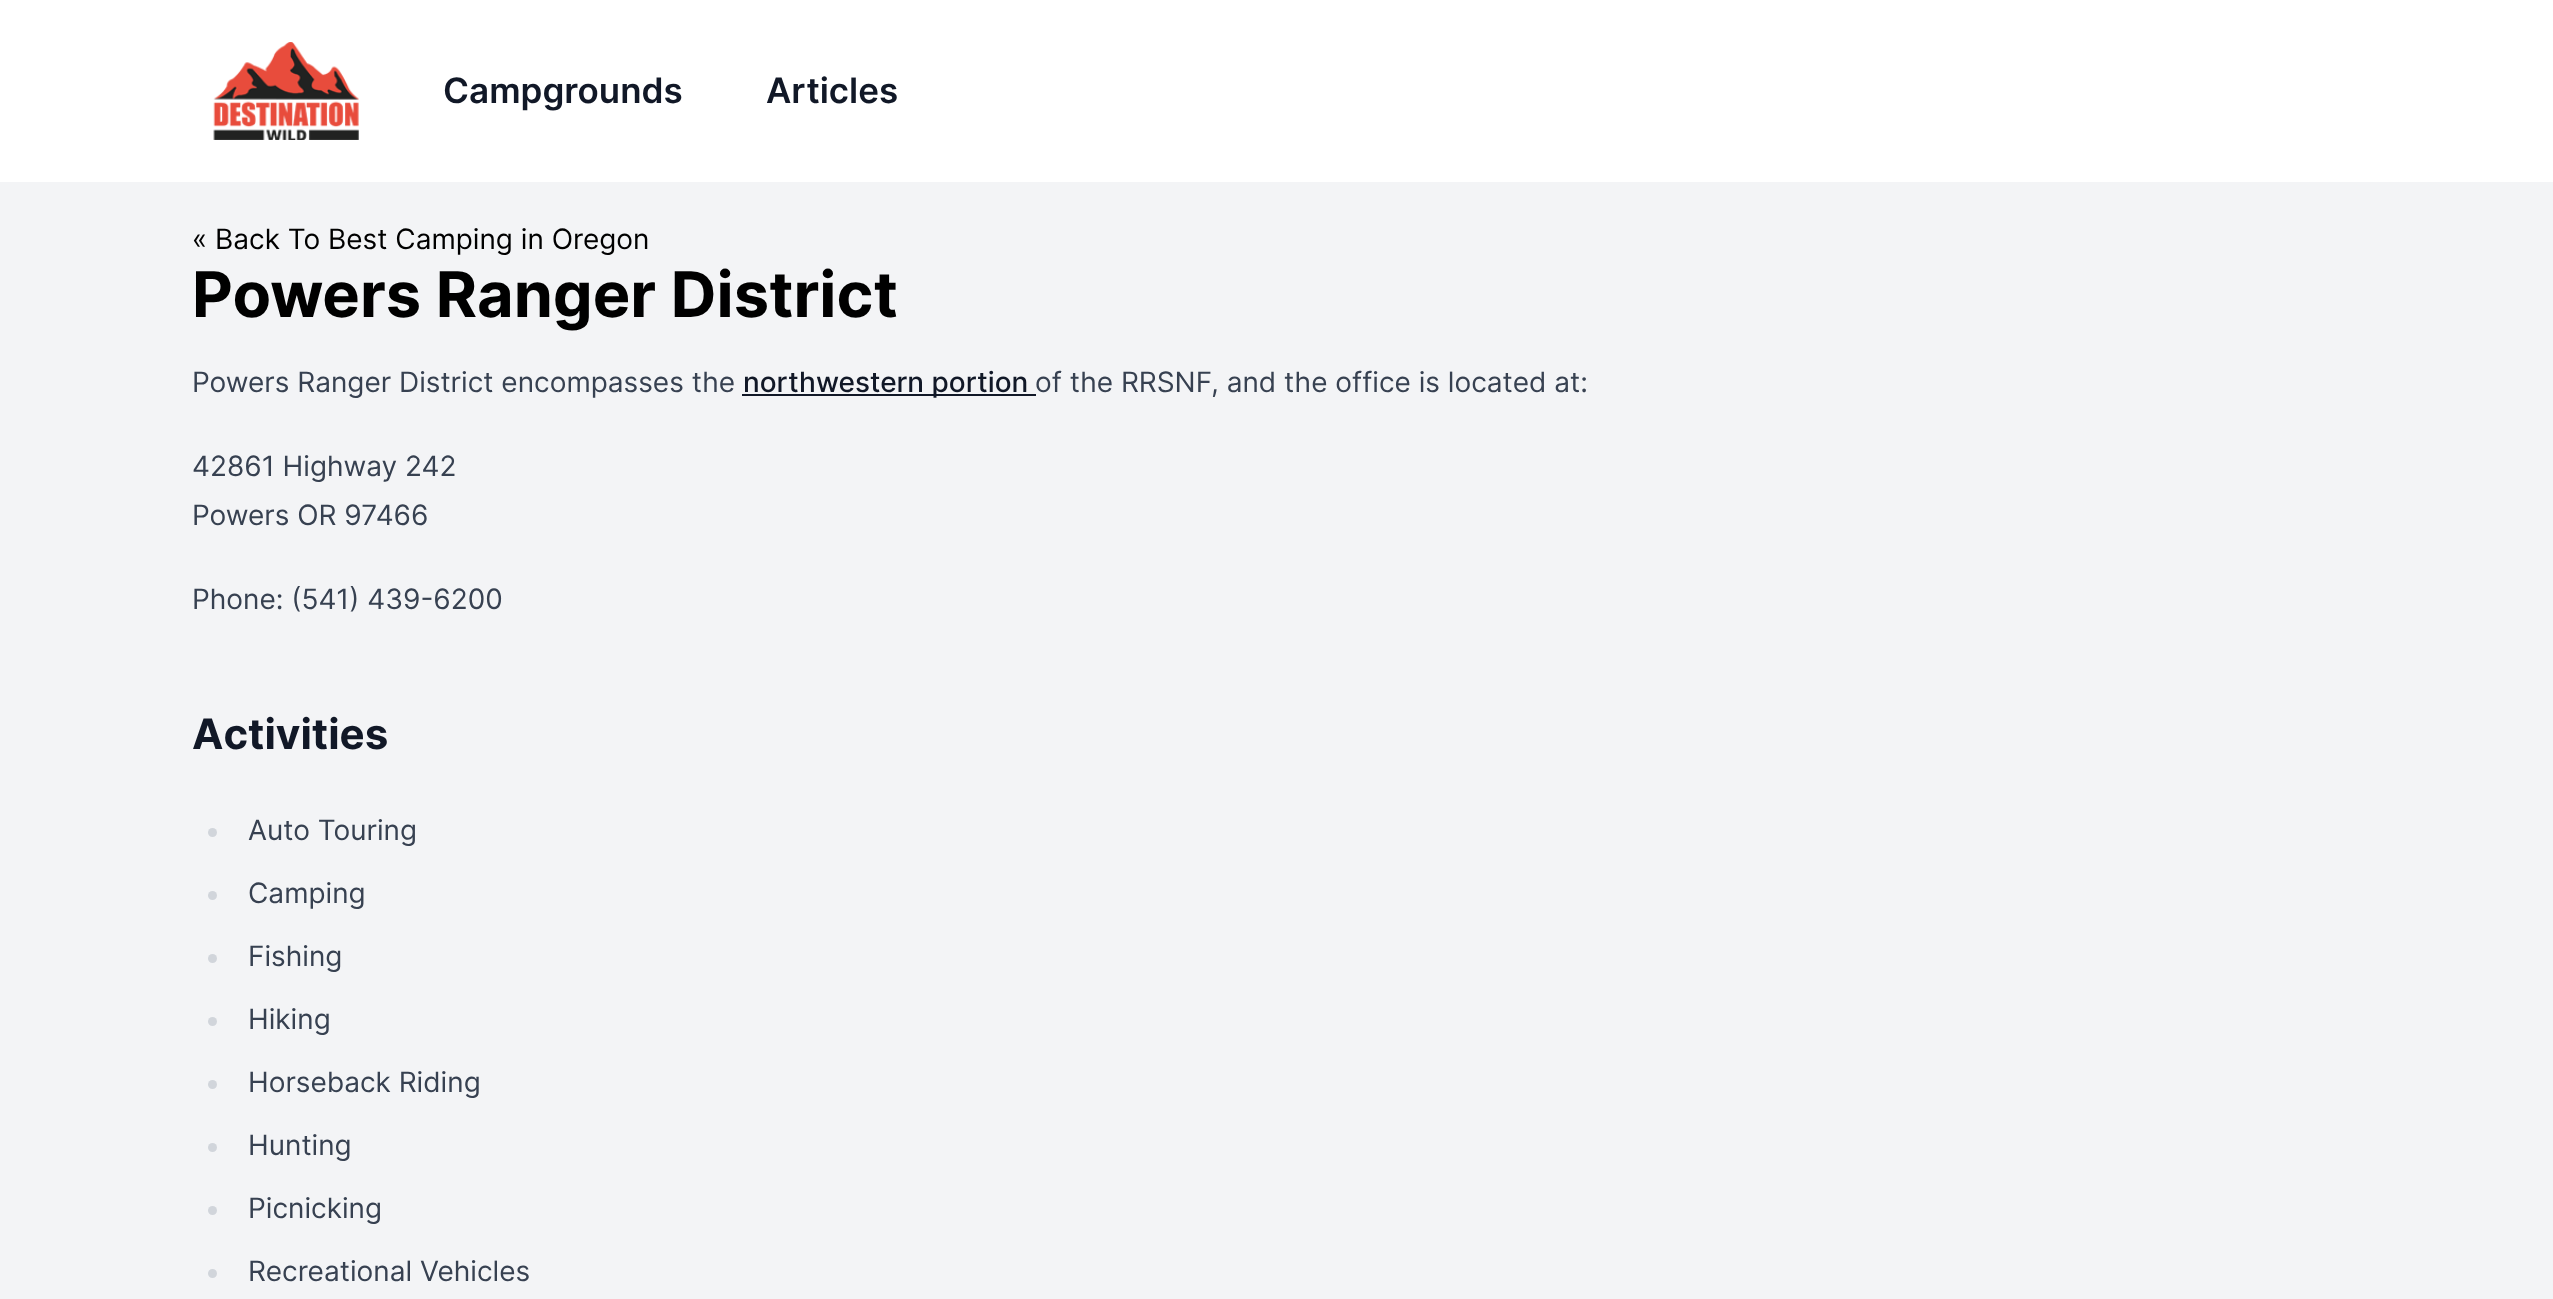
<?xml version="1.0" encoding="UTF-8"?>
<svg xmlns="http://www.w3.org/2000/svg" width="2553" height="1299">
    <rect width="100%" height="100%" fill="#F3F4F6"/>
    <rect x="0" y="0" width="2553" height="182" fill="#FFFFFF"/>
    <image x="213" y="42" width="146" height="98" href="img_01.png"/>
    <text x="443" y="103" font-family="Inter" font-size="35" font-weight="600" fill="#111827">Campgrounds</text>
    <text x="766" y="103" font-family="Inter" font-size="35" font-weight="600" fill="#111827">Articles</text>
    <text x="192" y="249" font-family="Inter" font-size="28" fill="#000000">« Back To Best Camping in Oregon</text>
    <text x="192" y="317" font-family="Inter" font-size="63" font-weight="700" fill="#000000">Powers Ranger District</text>
    <text x="192" y="392" font-family="Inter" font-size="28" fill="#374151">Powers Ranger District encompasses the</text>
    <rect x="742" y="394" width="294" height="2" fill="#111827"/>
    <text x="743" y="392" font-family="Inter" font-size="28" font-weight="500" fill="#111827">northwestern portion</text>
    <text x="1035" y="392" font-family="Inter" font-size="28" fill="#374151">of the RRSNF, and the office is located at:</text>
    <text font-family="Inter" font-size="28" fill="#374151">
        <tspan x="192" y="476">42861 Highway 242</tspan>
        <tspan x="192" y="525">Powers OR 97466</tspan>
    </text>
    <text x="192" y="609" font-family="Inter" font-size="28" fill="#374151">Phone: (541) 439-6200</text>
    <text x="192" y="749" font-family="Inter" font-size="42" font-weight="700" fill="#111827">Activities</text>
    <circle cx="212.5" cy="832.5" r="4.5" fill="#D1D5DB"/>
    <text x="248" y="840" font-family="Inter" font-size="28" fill="#374151">Auto Touring</text>
    <circle cx="212.5" cy="895.5" r="4.5" fill="#D1D5DB"/>
    <text x="248" y="903" font-family="Inter" font-size="28" fill="#374151">Camping</text>
    <circle cx="212.5" cy="958.5" r="4.5" fill="#D1D5DB"/>
    <text x="248" y="966" font-family="Inter" font-size="28" fill="#374151">Fishing</text>
    <circle cx="212.5" cy="1021.5" r="4.5" fill="#D1D5DB"/>
    <text x="248" y="1029" font-family="Inter" font-size="28" fill="#374151">Hiking</text>
    <circle cx="212.5" cy="1084.5" r="4.5" fill="#D1D5DB"/>
    <text x="248" y="1092" font-family="Inter" font-size="28" fill="#374151">Horseback Riding</text>
    <circle cx="212.5" cy="1147.5" r="4.5" fill="#D1D5DB"/>
    <text x="248" y="1155" font-family="Inter" font-size="28" fill="#374151">Hunting</text>
    <circle cx="212.5" cy="1210.5" r="4.5" fill="#D1D5DB"/>
    <text x="248" y="1218" font-family="Inter" font-size="28" fill="#374151">Picnicking</text>
    <circle cx="212.5" cy="1273.5" r="4.5" fill="#D1D5DB"/>
    <text x="248" y="1281" font-family="Inter" font-size="28" fill="#374151">Recreational Vehicles</text>
</svg>
